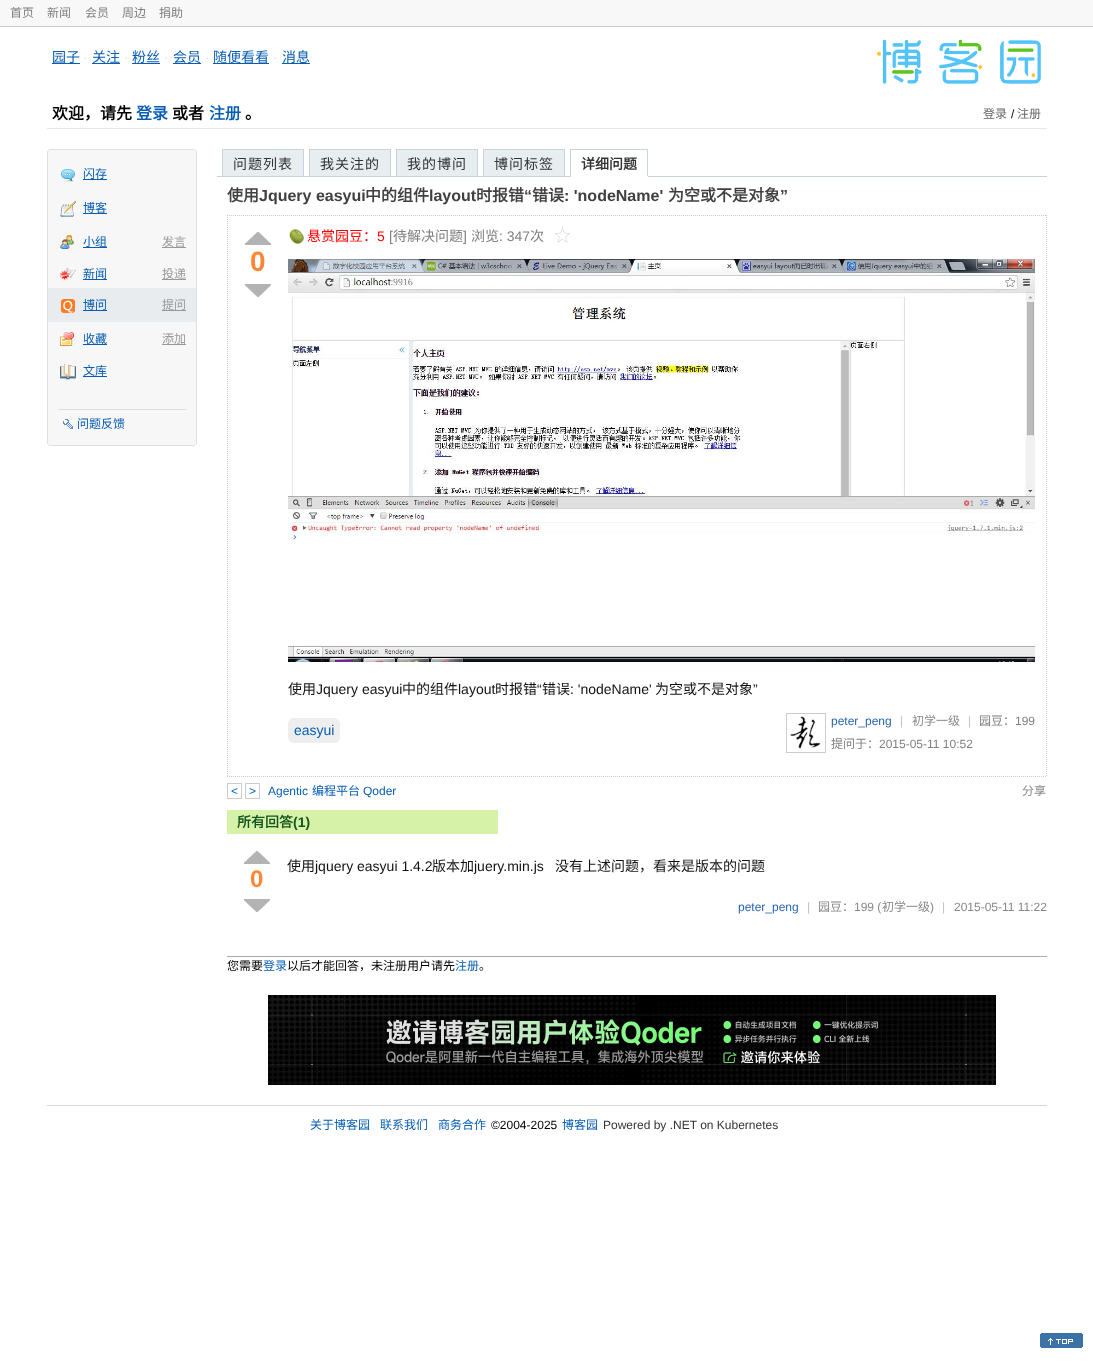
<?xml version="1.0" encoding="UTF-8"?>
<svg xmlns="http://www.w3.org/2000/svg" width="1093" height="1363">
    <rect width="100%" height="100%" fill="#FFFFFF"/>
    <rect x="0" y="0" width="1093" height="26" fill="#F8F8F8"/>
    <rect x="0" y="26" width="1093" height="1" fill="#CCCCCC"/>
    <text x="10" y="17" font-family="Noto Sans CJK SC" font-size="12" fill="#808080">首页</text>
    <text x="47" y="17" font-family="Noto Sans CJK SC" font-size="12" fill="#808080">新闻</text>
    <text x="85" y="17" font-family="Noto Sans CJK SC" font-size="12" fill="#808080">会员</text>
    <text x="122" y="17" font-family="Noto Sans CJK SC" font-size="12" fill="#808080">周边</text>
    <text x="159" y="17" font-family="Noto Sans CJK SC" font-size="12" fill="#808080">捐助</text>
    <rect x="47" y="128" width="1000" height="1" fill="#E8E8E8"/>
    <rect x="52" y="63" width="28" height="1" fill="#075DB3"/>
    <text x="52" y="62" font-family="Noto Sans CJK SC" font-size="14" fill="#075DB3">园子</text>
    <text x="83" y="62" font-family="Liberation Sans" font-size="14" fill="#DFDFDF">·</text>
    <rect x="92" y="63" width="28" height="1" fill="#075DB3"/>
    <text x="92" y="62" font-family="Noto Sans CJK SC" font-size="14" fill="#075DB3">关注</text>
    <text x="124" y="62" font-family="Liberation Sans" font-size="14" fill="#DFDFDF">·</text>
    <rect x="132" y="63" width="28" height="1" fill="#075DB3"/>
    <text x="132" y="62" font-family="Noto Sans CJK SC" font-size="14" fill="#075DB3">粉丝</text>
    <text x="164" y="62" font-family="Liberation Sans" font-size="14" fill="#DFDFDF">·</text>
    <rect x="173" y="63" width="28" height="1" fill="#075DB3"/>
    <text x="173" y="62" font-family="Noto Sans CJK SC" font-size="14" fill="#075DB3">会员</text>
    <text x="205" y="62" font-family="Liberation Sans" font-size="14" fill="#DFDFDF">·</text>
    <rect x="213" y="63" width="56" height="1" fill="#075DB3"/>
    <text x="213" y="62" font-family="Noto Sans CJK SC" font-size="14" fill="#075DB3">随便看看</text>
    <text x="273" y="62" font-family="Liberation Sans" font-size="14" fill="#DFDFDF">·</text>
    <rect x="282" y="63" width="28" height="1" fill="#075DB3"/>
    <text x="282" y="62" font-family="Noto Sans CJK SC" font-size="14" fill="#075DB3">消息</text>
    <image x="877" y="39" width="165" height="45" href="img_01.png"/>
    <text x="52" y="119" font-family="Noto Sans CJK SC" font-size="16" font-weight="700" fill="#000000">欢迎，请先</text>
    <text x="136" y="119" font-family="Noto Sans CJK SC" font-size="16" font-weight="700" fill="#075DB3">登录</text>
    <text x="172" y="119" font-family="Noto Sans CJK SC" font-size="16" font-weight="700" fill="#000000">或者</text>
    <text x="209" y="119" font-family="Noto Sans CJK SC" font-size="16" font-weight="700" fill="#075DB3">注册</text>
    <text x="245" y="119" font-family="Noto Sans CJK SC" font-size="16" font-weight="700" fill="#000000">。</text>
    <text x="983" y="118" font-family="Noto Sans CJK SC" font-size="12" fill="#666666">登录</text>
    <text x="1011" y="118" font-family="Liberation Sans" font-size="12" fill="#000000">/</text>
    <text x="1017" y="118" font-family="Noto Sans CJK SC" font-size="12" fill="#666666">注册</text>
    <rect x="49" y="149" width="146" height="1" fill="#DFE1E1"/>
    <rect x="48" y="150" width="148" height="1" fill="#F7F7F7"/>
    <rect x="195" y="150" width="1" height="1" fill="#DFE1E1"/>
    <rect x="48" y="150" width="1" height="1" fill="#DFE1E1"/>
    <rect x="47" y="151" width="150" height="1" fill="#F7F7F7"/>
    <rect x="196" y="151" width="1" height="1" fill="#DBDEE2"/>
    <rect x="47" y="151" width="1" height="292" fill="#DFE1E1"/>
    <rect x="48" y="152" width="148" height="291" fill="#F7F7F7"/>
    <rect x="196" y="152" width="1" height="291" fill="#DFE1E1"/>
    <image x="61" y="169" width="14" height="13" href="img_02.png"/>
    <text x="83" y="178" font-family="Noto Sans CJK SC" font-size="12" fill="#075DB3">闪存</text>
    <rect x="83" y="179" width="24" height="1" fill="#075DB3"/>
    <image x="60" y="201" width="16" height="16" href="img_03.png"/>
    <text x="83" y="212" font-family="Noto Sans CJK SC" font-size="12" fill="#075DB3">博客</text>
    <rect x="83" y="213" width="24" height="1" fill="#075DB3"/>
    <image x="60" y="235" width="14" height="14" href="img_04.png"/>
    <text x="83" y="246" font-family="Noto Sans CJK SC" font-size="12" fill="#075DB3">小组</text>
    <rect x="83" y="247" width="24" height="1" fill="#075DB3"/>
    <text x="162" y="246" font-family="Noto Sans CJK SC" font-size="12" fill="#999999">发言</text>
    <rect x="162" y="247" width="24" height="1" fill="#999999"/>
    <image x="60" y="267" width="16" height="13" href="img_05.png"/>
    <text x="83" y="278" font-family="Noto Sans CJK SC" font-size="12" fill="#075DB3">新闻</text>
    <rect x="83" y="279" width="24" height="1" fill="#075DB3"/>
    <text x="162" y="278" font-family="Noto Sans CJK SC" font-size="12" fill="#999999">投递</text>
    <rect x="162" y="279" width="24" height="1" fill="#999999"/>
    <rect x="48" y="288" width="148" height="34" fill="#E9ECEF"/>
    <image x="61" y="299" width="14" height="14" href="img_06.png"/>
    <text x="83" y="309" font-family="Noto Sans CJK SC" font-size="12" fill="#075DB3">博问</text>
    <rect x="83" y="310" width="24" height="1" fill="#075DB3"/>
    <text x="162" y="309" font-family="Noto Sans CJK SC" font-size="12" fill="#999999">提问</text>
    <rect x="162" y="310" width="24" height="1" fill="#999999"/>
    <image x="60" y="332" width="14" height="14" href="img_07.png"/>
    <text x="83" y="343" font-family="Noto Sans CJK SC" font-size="12" fill="#075DB3">收藏</text>
    <rect x="83" y="344" width="24" height="1" fill="#075DB3"/>
    <text x="162" y="343" font-family="Noto Sans CJK SC" font-size="12" fill="#999999">添加</text>
    <rect x="162" y="344" width="24" height="1" fill="#999999"/>
    <image x="60" y="364" width="16" height="16" href="img_08.png"/>
    <text x="83" y="375" font-family="Noto Sans CJK SC" font-size="12" fill="#075DB3">文库</text>
    <rect x="83" y="376" width="24" height="1" fill="#075DB3"/>
    <rect x="58" y="409" width="128" height="1" fill="#DDDDDD"/>
    <image x="63" y="419" width="10" height="10" href="img_09.png"/>
    <text x="77" y="428" font-family="Noto Sans CJK SC" font-size="12" fill="#075DB3">问题反馈</text>
    <rect x="47" y="443" width="150" height="1" fill="#F7F7F7"/>
    <rect x="196" y="443" width="1" height="1" fill="#DBDEE2"/>
    <rect x="47" y="443" width="1" height="1" fill="#DFE1E1"/>
    <rect x="48" y="444" width="148" height="1" fill="#F7F7F7"/>
    <rect x="195" y="444" width="1" height="1" fill="#DFE1E1"/>
    <rect x="48" y="444" width="1" height="1" fill="#DFE1E1"/>
    <rect x="49" y="445" width="146" height="1" fill="#DFE1E1"/>
    <rect x="217" y="176" width="830" height="1" fill="#C8D3DE"/>
    <rect x="222.5" y="149.5" width="81" height="27" fill="#E8EDF0" stroke="#C8D3DE"/>
    <text x="233" y="169" font-family="Noto Sans CJK SC" font-size="14" letter-spacing="1" fill="#333333">问题列表</text>
    <rect x="309.5" y="149.5" width="81" height="27" fill="#E8EDF0" stroke="#C8D3DE"/>
    <text x="320" y="169" font-family="Noto Sans CJK SC" font-size="14" letter-spacing="1" fill="#333333">我关注的</text>
    <rect x="396.5" y="149.5" width="81" height="27" fill="#E8EDF0" stroke="#C8D3DE"/>
    <text x="407" y="169" font-family="Noto Sans CJK SC" font-size="14" letter-spacing="1" fill="#333333">我的博问</text>
    <rect x="483.5" y="149.5" width="81" height="27" fill="#E8EDF0" stroke="#C8D3DE"/>
    <text x="494" y="169" font-family="Noto Sans CJK SC" font-size="14" letter-spacing="1" fill="#333333">博问标签</text>
    <rect x="570" y="149" width="78" height="1" fill="#C8D3DE"/>
    <rect x="647" y="149" width="1" height="28" fill="#C8D3DE"/>
    <rect x="570" y="176" width="78" height="1" fill="#FFFFFF"/>
    <rect x="570" y="149" width="1" height="28" fill="#C8D3DE"/>
    <text x="581" y="169" font-family="Noto Sans CJK SC" font-size="14" font-weight="700" fill="#333333">详细问题</text>
    <text x="227" y="201" font-family="Noto Sans CJK SC" font-size="16" font-weight="700" fill="#404040">使用</text>
    <text x="259" y="201" font-family="Liberation Sans" font-size="16" font-weight="700" fill="#404040">Jquery easyui</text>
    <text x="365" y="201" font-family="Noto Sans CJK SC" font-size="16" font-weight="700" fill="#404040">中的组件</text>
    <text x="429" y="201" font-family="Liberation Sans" font-size="16" font-weight="700" fill="#404040">layout</text>
    <text x="476" y="201" font-family="Noto Sans CJK SC" font-size="16" font-weight="700" fill="#404040">时报错</text>
    <text x="524" y="201" font-family="Liberation Sans" font-size="16" font-weight="700" fill="#404040">“</text>
    <text x="532" y="201" font-family="Noto Sans CJK SC" font-size="16" font-weight="700" fill="#404040">错误</text>
    <text x="564" y="201" font-family="Liberation Sans" font-size="16" font-weight="700" fill="#404040">: 'nodeName'</text>
    <text x="668" y="201" font-family="Noto Sans CJK SC" font-size="16" font-weight="700" fill="#404040">为空或不是对象</text>
    <text x="780" y="201" font-family="Liberation Sans" font-size="16" font-weight="700" fill="#404040">”</text>
    <path d="M 227 215.5 H 1047" fill="none" stroke="#CCCCCC" stroke-dasharray="1 1"/>
    <path d="M 1046.5 215 V 777" fill="none" stroke="#CCCCCC" stroke-dasharray="1 1"/>
    <path d="M 227 776.5 H 1047" fill="none" stroke="#CCCCCC" stroke-dasharray="1 1"/>
    <path d="M 227.5 215 V 777" fill="none" stroke="#CCCCCC" stroke-dasharray="1 1"/>
    <image x="245" y="232" width="26" height="13" href="img_10.png"/>
    <text x="250" y="271" font-family="Liberation Sans" font-size="28" font-weight="700" fill="#FF8635">0</text>
    <image x="245" y="284" width="26" height="13" href="img_11.png"/>
    <image x="289" y="228" width="15" height="16" href="img_12.png"/>
    <text x="307" y="241" font-family="Noto Sans CJK SC" font-size="14" fill="#FF0000">悬赏园豆：</text>
    <text x="377" y="241" font-family="Liberation Sans" font-size="14" fill="#FF0000">5</text>
    <text x="389" y="241" font-family="Liberation Sans" font-size="14" fill="#808080">[</text>
    <text x="393" y="241" font-family="Noto Sans CJK SC" font-size="14" fill="#808080">待解决问题</text>
    <text x="463" y="241" font-family="Liberation Sans" font-size="14" fill="#808080">]</text>
    <text x="471" y="241" font-family="Noto Sans CJK SC" font-size="14" fill="#808080">浏览</text>
    <text x="499" y="241" font-family="Liberation Sans" font-size="14" fill="#808080">: 347</text>
    <text x="530" y="241" font-family="Noto Sans CJK SC" font-size="14" fill="#808080">次</text>
    <image x="555" y="227" width="15" height="16" href="img_13.png"/>
    <image x="288" y="259" width="747" height="403" href="img_14.png"/>
    <text x="288" y="694" font-family="Noto Sans CJK SC" font-size="14" fill="#111111">使用</text>
    <text x="316" y="694" font-family="Liberation Sans" font-size="14" fill="#111111">Jquery easyui</text>
    <text x="402" y="694" font-family="Noto Sans CJK SC" font-size="14" fill="#111111">中的组件</text>
    <text x="458" y="694" font-family="Liberation Sans" font-size="14" fill="#111111">layout</text>
    <text x="495" y="694" font-family="Noto Sans CJK SC" font-size="14" fill="#111111">时报错</text>
    <text x="537" y="694" font-family="Liberation Sans" font-size="14" fill="#111111">“</text>
    <text x="542" y="694" font-family="Noto Sans CJK SC" font-size="14" fill="#111111">错误</text>
    <text x="570" y="694" font-family="Liberation Sans" font-size="14" fill="#111111">: 'nodeName'</text>
    <text x="655" y="694" font-family="Noto Sans CJK SC" font-size="14" fill="#111111">为空或不是对象</text>
    <text x="753" y="694" font-family="Liberation Sans" font-size="14" fill="#111111">”</text>
    <rect x="288" y="718" width="52" height="25" rx="6" fill="#EEEEEE"/>
    <text x="294" y="735" font-family="Liberation Sans" font-size="14" fill="#075DB3">easyui</text>
    <rect x="786.5" y="713.5" width="39" height="39" fill="none" stroke="#CCCCCC"/>
    <image x="790" y="716" width="31" height="33" href="img_15.png"/>
    <text x="831" y="725" font-family="Liberation Sans" font-size="12" fill="#2965B1">peter_peng</text>
    <text x="900" y="725" font-family="Liberation Sans" font-size="12" fill="#C1C1C1">|</text>
    <text x="912" y="725" font-family="Noto Sans CJK SC" font-size="12" fill="#888888">初学一级</text>
    <text x="968" y="725" font-family="Liberation Sans" font-size="12" fill="#C1C1C1">|</text>
    <text x="979" y="725" font-family="Noto Sans CJK SC" font-size="12" fill="#808080">园豆：</text>
    <text x="1015" y="725" font-family="Liberation Sans" font-size="12" fill="#808080">199</text>
    <text x="831" y="748" font-family="Noto Sans CJK SC" font-size="12" fill="#808080">提问于：</text>
    <text x="879" y="748" font-family="Liberation Sans" font-size="12" fill="#808080">2015-05-11 10:52</text>
    <rect x="227.5" y="783.5" width="14" height="15" fill="none" stroke="#CCCCCC"/>
    <text x="231" y="795" font-family="Liberation Sans" font-size="12" fill="#075DB3">&lt;</text>
    <rect x="245.5" y="783.5" width="14" height="15" fill="none" stroke="#CCCCCC"/>
    <text x="249" y="795" font-family="Liberation Sans" font-size="12" fill="#075DB3">&gt;</text>
    <text x="268" y="795" font-family="Liberation Sans" font-size="12" fill="#075DB3">Agentic</text>
    <text x="312" y="795" font-family="Noto Sans CJK SC" font-size="12" fill="#075DB3">编程平台</text>
    <text x="363" y="795" font-family="Liberation Sans" font-size="12" fill="#075DB3">Qoder</text>
    <text x="1022" y="795" font-family="Noto Sans CJK SC" font-size="12" fill="#888888">分享</text>
    <rect x="227" y="810" width="271" height="24" fill="#D6F2A9"/>
    <text x="237" y="827" font-family="Noto Sans CJK SC" font-size="14" font-weight="700" fill="#15551E">所有回答</text>
    <text x="293" y="827" font-family="Liberation Sans" font-size="14" font-weight="700" fill="#15551E">(1)</text>
    <rect x="227" y="956" width="820" height="1" fill="#AAAAAA"/>
    <image x="244" y="851" width="26" height="13" href="img_10.png"/>
    <text x="250" y="887" font-family="Liberation Sans" font-size="24" font-weight="700" fill="#FF8635">0</text>
    <image x="244" y="899" width="26" height="13" href="img_11.png"/>
    <text x="287" y="871" font-family="Noto Sans CJK SC" font-size="14" fill="#111111">使用</text>
    <text x="315" y="871" font-family="Liberation Sans" font-size="14" fill="#111111">jquery easyui 1.4.2</text>
    <text x="432" y="871" font-family="Noto Sans CJK SC" font-size="14" fill="#111111">版本加</text>
    <text x="474" y="871" font-family="Liberation Sans" font-size="14" fill="#111111">juery.min.js</text>
    <text x="555" y="871" font-family="Noto Sans CJK SC" font-size="14" fill="#111111">没有上述问题，看来是版本的问题</text>
    <text x="738" y="911" font-family="Liberation Sans" font-size="12" fill="#2965B1">peter_peng</text>
    <text x="807" y="911" font-family="Liberation Sans" font-size="12" fill="#C1C1C1">|</text>
    <text x="818" y="911" font-family="Noto Sans CJK SC" font-size="12" fill="#888888">园豆：</text>
    <text x="854" y="911" font-family="Liberation Sans" font-size="12" fill="#888888">199 (</text>
    <text x="882" y="911" font-family="Noto Sans CJK SC" font-size="12" fill="#888888">初学一级</text>
    <text x="930" y="911" font-family="Liberation Sans" font-size="12" fill="#888888">)</text>
    <text x="942" y="911" font-family="Liberation Sans" font-size="12" fill="#C1C1C1">|</text>
    <text x="954" y="911" font-family="Liberation Sans" font-size="12" fill="#888888">2015-05-11 11:22</text>
    <text x="227" y="970" font-family="Noto Sans CJK SC" font-size="12" fill="#000000">您需要</text>
    <text x="263" y="970" font-family="Noto Sans CJK SC" font-size="12" fill="#075DB3">登录</text>
    <text x="287" y="970" font-family="Noto Sans CJK SC" font-size="12" fill="#000000">以后才能回答，未注册用户请先</text>
    <text x="455" y="970" font-family="Noto Sans CJK SC" font-size="12" fill="#075DB3">注册</text>
    <text x="479" y="970" font-family="Noto Sans CJK SC" font-size="12" fill="#000000">。</text>
    <image x="268" y="995" width="728" height="90" href="img_16.png"/>
    <rect x="47" y="1105" width="1000" height="1" fill="#D6D9DE"/>
    <text x="310" y="1129" font-family="Noto Sans CJK SC" font-size="12" fill="#075DB3">关于博客园</text>
    <text x="380" y="1129" font-family="Noto Sans CJK SC" font-size="12" fill="#075DB3">联系我们</text>
    <text x="438" y="1129" font-family="Noto Sans CJK SC" font-size="12" fill="#075DB3">商务合作</text>
    <text x="491" y="1129" font-family="Liberation Sans" font-size="12" fill="#000000">©2004-2025</text>
    <text x="562" y="1129" font-family="Noto Sans CJK SC" font-size="12" fill="#075DB3">博客园</text>
    <text x="603" y="1129" font-family="Liberation Sans" font-size="12" fill="#333333">Powered by .NET on Kubernetes</text>
    <image x="1040" y="1333" width="43" height="15" href="img_17.png"/>
</svg>
